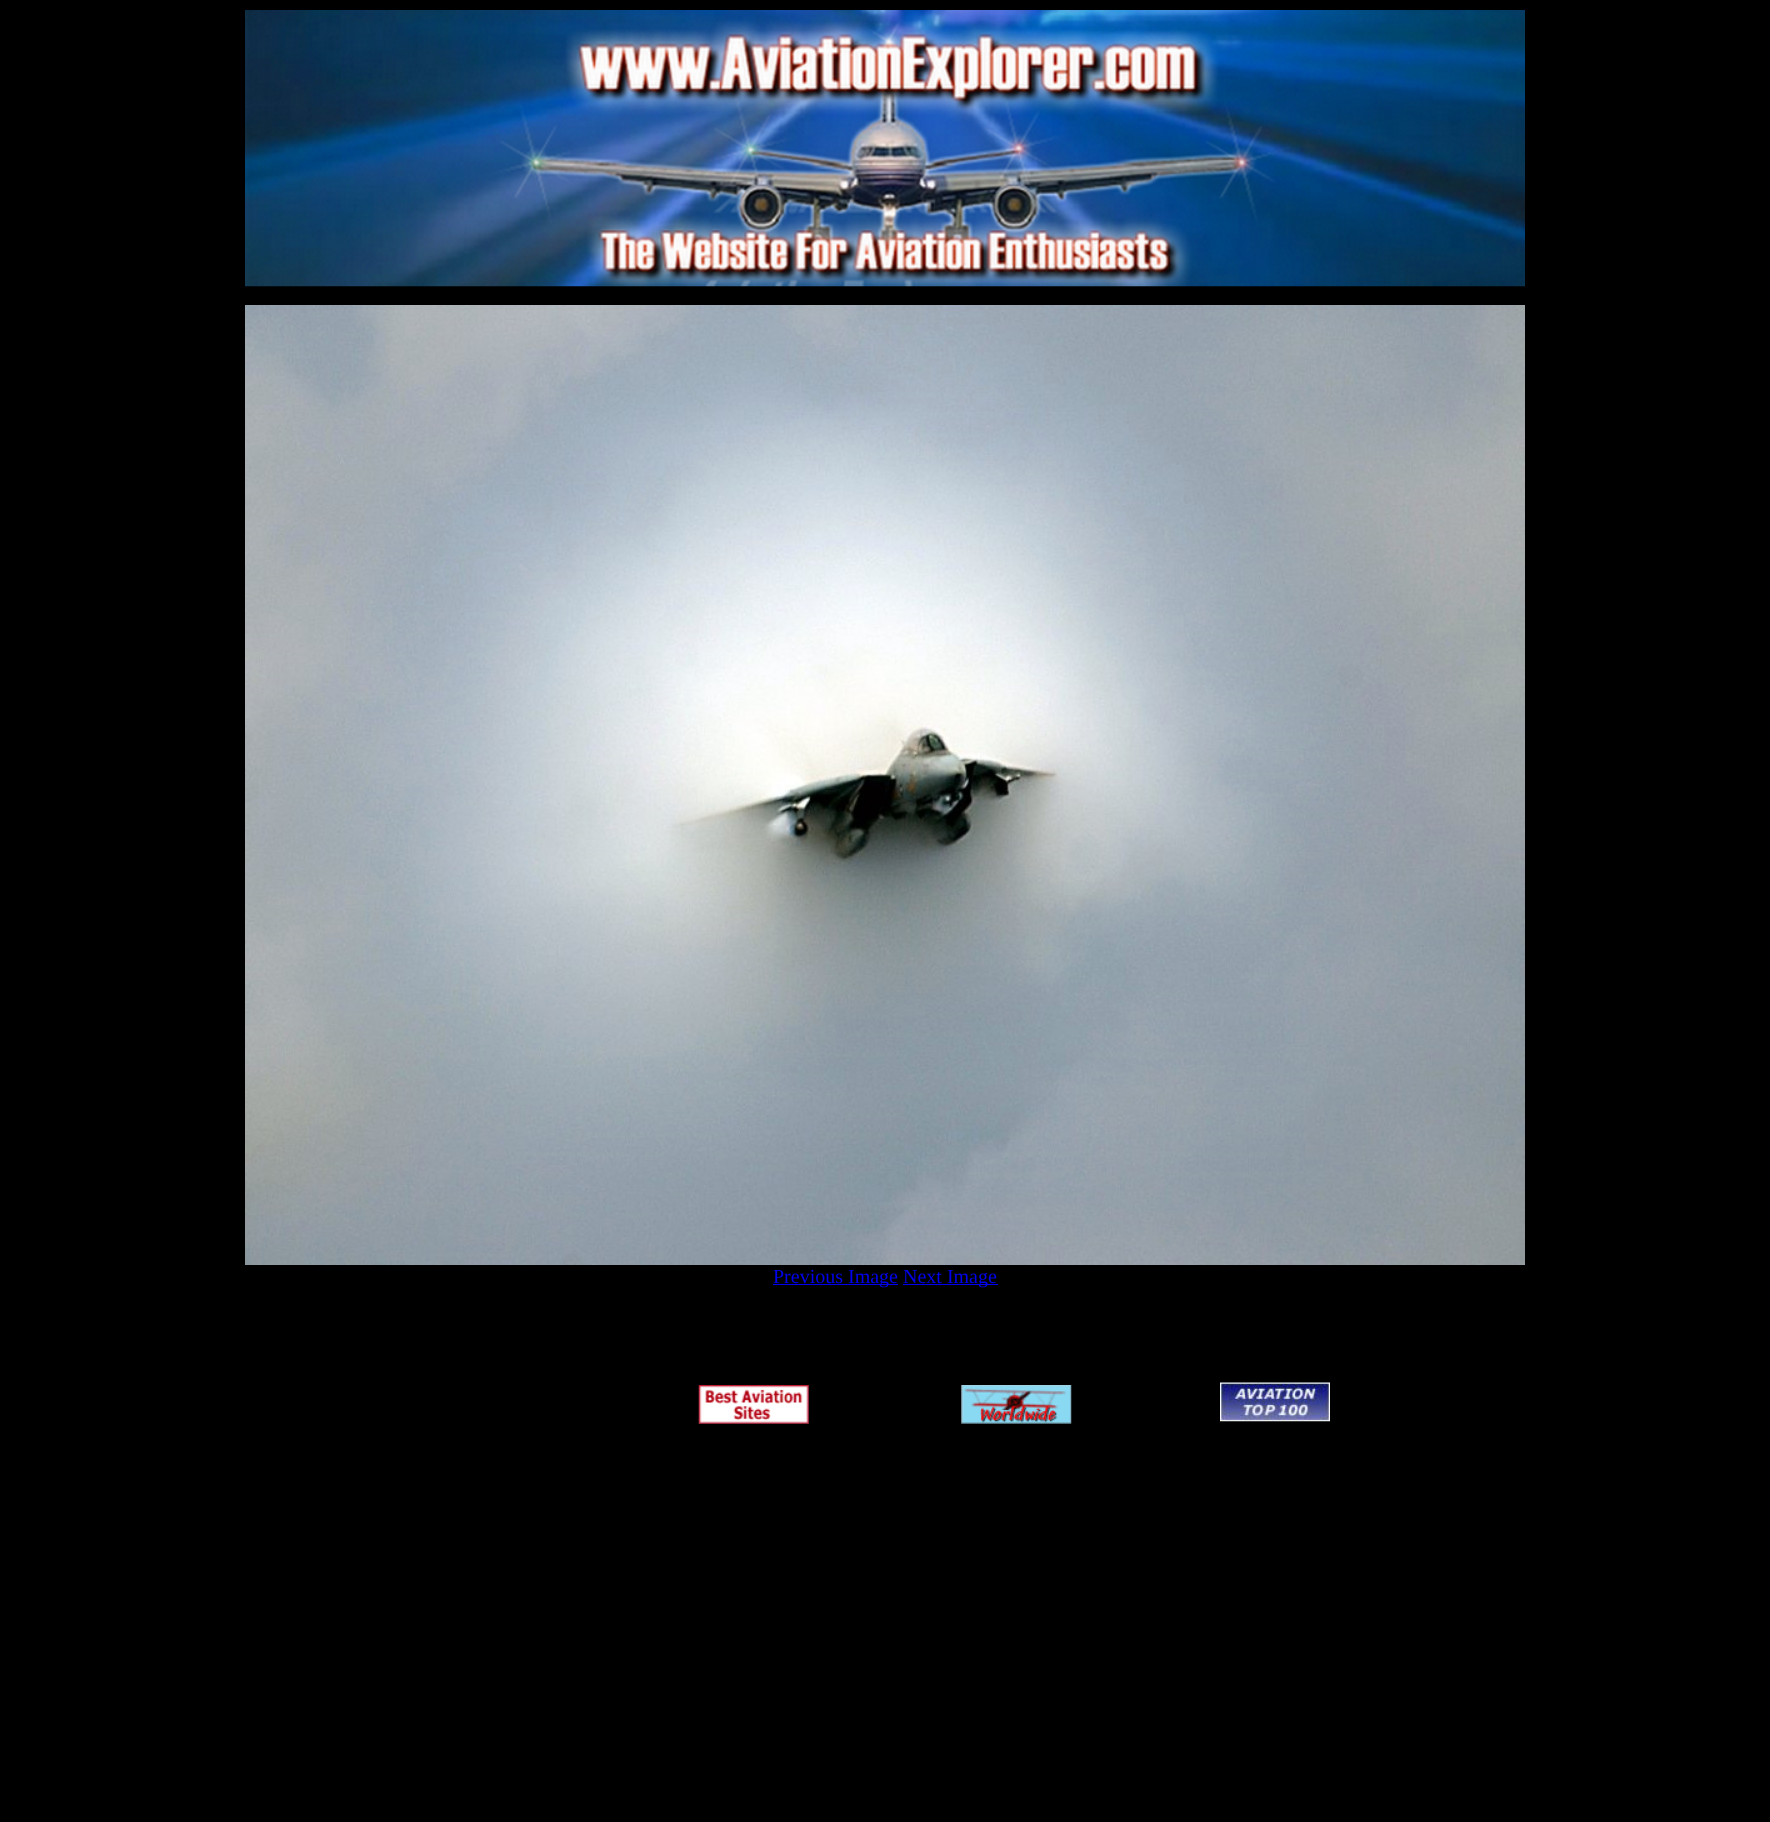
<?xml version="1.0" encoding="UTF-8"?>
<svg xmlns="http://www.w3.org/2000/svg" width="1770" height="1822">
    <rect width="100%" height="100%" fill="#000000"/>
    <image x="245" y="10" width="1280" height="277" href="img_01.png"/>
    <image x="245" y="305" width="1280" height="960" href="img_02.png"/>
    <rect x="773" y="1284" width="125" height="1" fill="#0000EE"/>
    <text x="773" y="1283" font-family="Liberation Serif" font-size="20" fill="#0000EE">Previous Image</text>
    <rect x="903" y="1284" width="95" height="1" fill="#0000EE"/>
    <text x="903" y="1283" font-family="Liberation Serif" font-size="20" fill="#0000EE">Next Image</text>
    <image x="698" y="1385" width="111" height="39" href="img_03.png"/>
    <image x="961" y="1385" width="111" height="39" href="img_04.png"/>
    <image x="1220" y="1382" width="110" height="40" href="img_05.png"/>
</svg>
